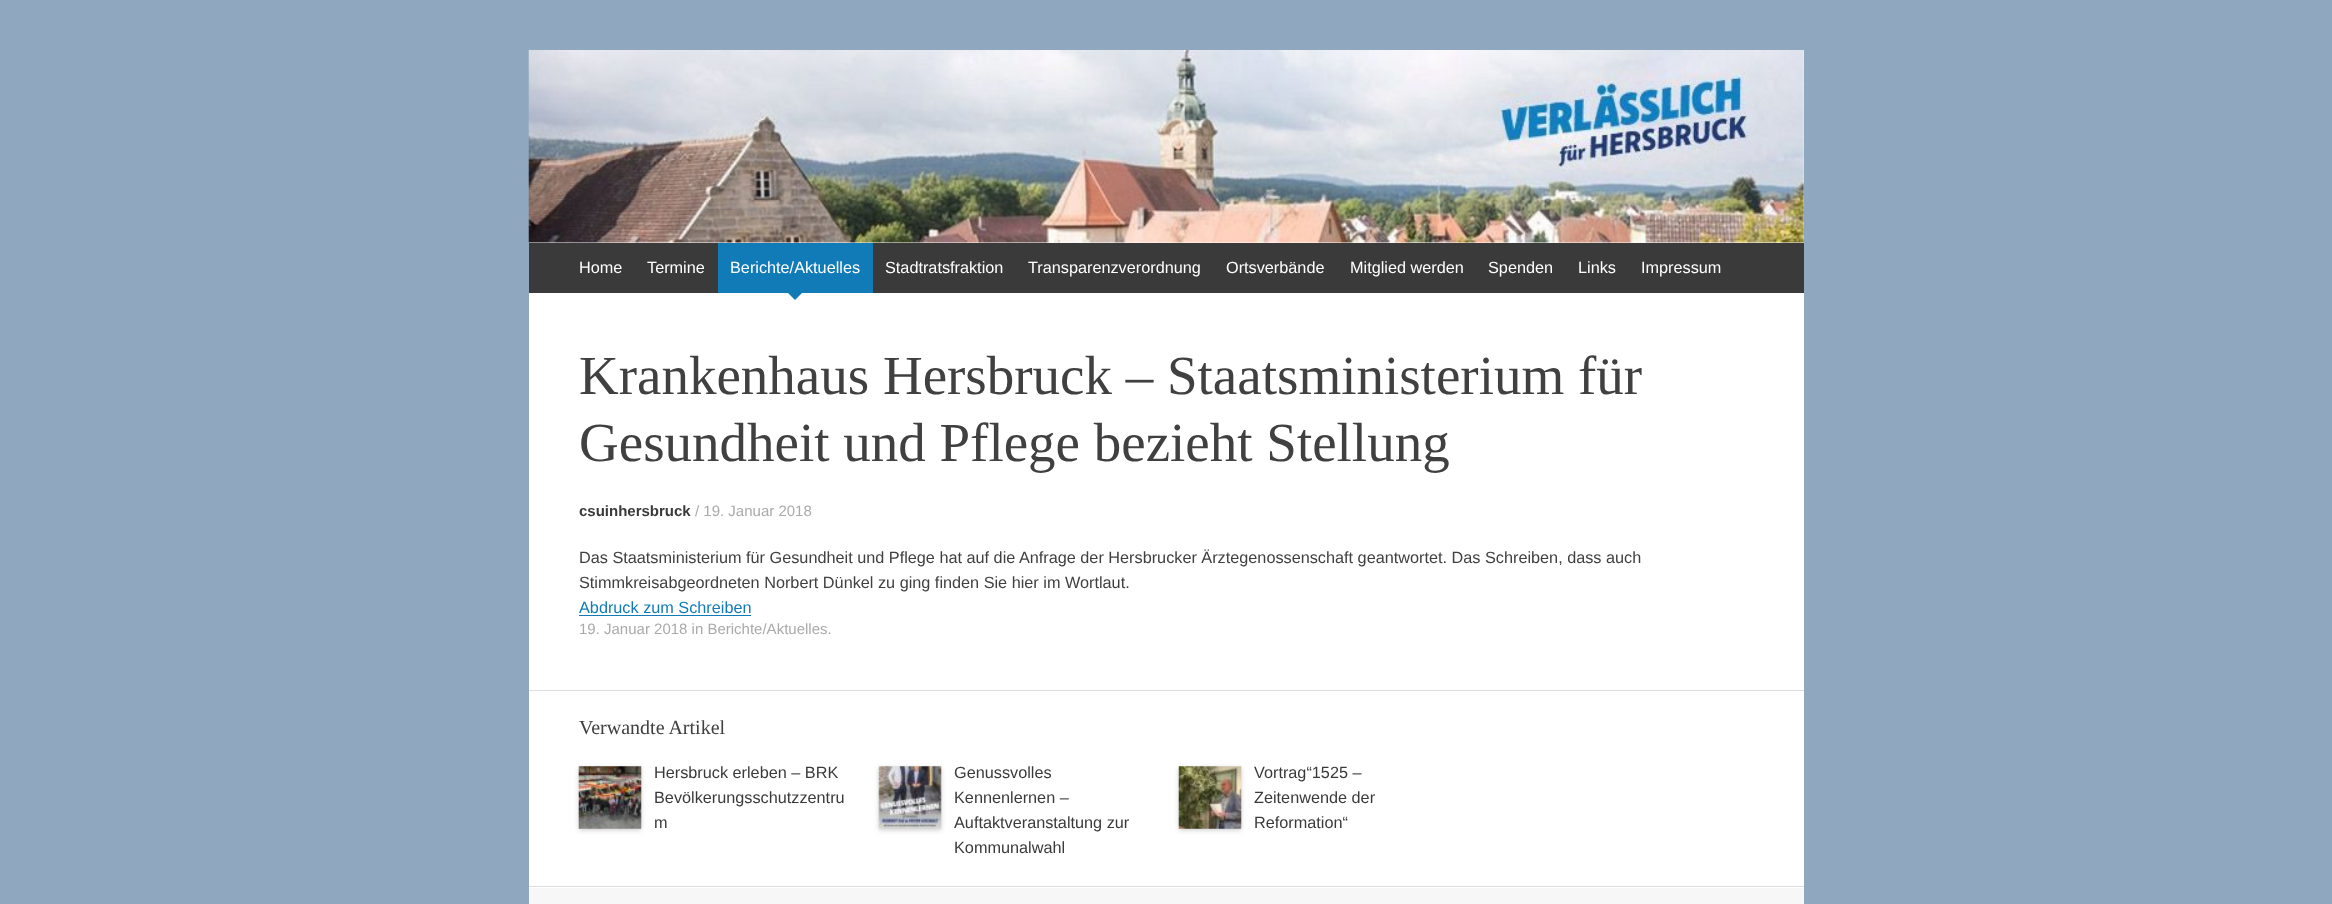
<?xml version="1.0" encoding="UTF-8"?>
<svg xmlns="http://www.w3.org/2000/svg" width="2332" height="904">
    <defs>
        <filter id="blur1" x="-50%" y="-200%" width="200%" height="500%"><feGaussianBlur stdDeviation="2.5"/></filter>
    </defs>
    <rect width="100%" height="100%" fill="#8FA7BF"/>
    <rect x="529" y="50" width="1275" height="838" fill="#FFFFFF"/>
    <image x="528" y="50" width="1276" height="193" href="img_01.png"/>
    <rect x="529" y="243" width="1275" height="50" fill="#3A3A3A"/>
    <text x="579" y="273" font-family="Liberation Sans" font-size="16.25" fill="#FFFFFF">Home</text>
    <text x="647" y="273" font-family="Liberation Sans" font-size="16.25" fill="#FFFFFF">Termine</text>
    <rect x="718" y="243" width="155" height="50" fill="#117BB8"/>
    <text x="730" y="273" font-family="Liberation Sans" font-size="16.25" fill="#FFFFFF">Berichte/Aktuelles</text>
    <path d="M 787.5 292.5 H 802.5 L 795 300 Z" fill="#117BB8"/>
    <text x="885" y="273" font-family="Liberation Sans" font-size="16.25" fill="#FFFFFF">Stadtratsfraktion</text>
    <text x="1028" y="273" font-family="Liberation Sans" font-size="16.25" fill="#FFFFFF">Transparenzverordnung</text>
    <text x="1226" y="273" font-family="Liberation Sans" font-size="16.25" fill="#FFFFFF">Ortsverbände</text>
    <text x="1350" y="273" font-family="Liberation Sans" font-size="16.25" fill="#FFFFFF">Mitglied werden</text>
    <text x="1488" y="273" font-family="Liberation Sans" font-size="16.25" fill="#FFFFFF">Spenden</text>
    <text x="1578" y="273" font-family="Liberation Sans" font-size="16.25" fill="#FFFFFF">Links</text>
    <text x="1641" y="273" font-family="Liberation Sans" font-size="16.25" fill="#FFFFFF">Impressum</text>
    <rect x="529" y="690" width="1275" height="1" fill="#DDDDDD"/>
    <text font-family="Liberation Serif" font-size="55" fill="#404040">
        <tspan x="579" y="394">Krankenhaus Hersbruck – Staatsministerium für</tspan>
        <tspan x="579" y="461">Gesundheit und Pflege bezieht Stellung</tspan>
    </text>
    <text x="579" y="516" font-family="Liberation Sans" font-size="15" font-weight="700" fill="#3A3A3A">csuinhersbruck</text>
    <text x="695" y="516" font-family="Liberation Sans" font-size="15" fill="#AAAAAA">/ 19. Januar 2018</text>
    <text font-family="Liberation Sans" font-size="16.25" fill="#404040">
        <tspan x="579" y="563">Das Staatsministerium für Gesundheit und Pflege hat auf die Anfrage der Hersbrucker Ärztegenossenschaft geantwortet. Das Schreiben, dass auch</tspan>
        <tspan x="579" y="588">Stimmkreisabgeordneten Norbert Dünkel zu ging finden Sie hier im Wortlaut.</tspan>
    </text>
    <text x="579" y="613" font-family="Liberation Sans" font-size="16.25" fill="#117BB8">Abdruck zum Schreiben</text>
    <rect x="579" y="615" width="172" height="1" fill="#117BB8"/>
    <text x="579" y="634" font-family="Liberation Sans" font-size="15" fill="#AAAAAA">19. Januar 2018 in Berichte/Aktuelles.</text>
    <rect x="529" y="886" width="1275" height="1" fill="#DDDDDD"/>
    <text x="579" y="734" font-family="Liberation Serif" font-size="20" fill="#404040">Verwandte Artikel</text>
    <rect x="579" y="768" width="62" height="62" fill="#000000" fill-opacity="0.2" filter="url(#blur1)"/>
    <image x="578" y="766" width="64" height="63" href="img_02.png"/>
    <text font-family="Liberation Sans" font-size="16.25" fill="#3A3A3A">
        <tspan x="654" y="778">Hersbruck erleben – BRK</tspan>
        <tspan x="654" y="803">Bevölkerungsschutzzentru</tspan>
        <tspan x="654" y="828">m</tspan>
    </text>
    <rect x="879" y="768" width="62" height="62" fill="#000000" fill-opacity="0.2" filter="url(#blur1)"/>
    <image x="878" y="766" width="64" height="63" href="img_03.png"/>
    <text font-family="Liberation Sans" font-size="16.25" fill="#3A3A3A">
        <tspan x="954" y="778">Genussvolles</tspan>
        <tspan x="954" y="803">Kennenlernen –</tspan>
        <tspan x="954" y="828">Auftaktveranstaltung zur</tspan>
        <tspan x="954" y="853">Kommunalwahl</tspan>
    </text>
    <rect x="1179" y="768" width="62" height="62" fill="#000000" fill-opacity="0.2" filter="url(#blur1)"/>
    <image x="1178" y="766" width="64" height="63" href="img_04.png"/>
    <text font-family="Liberation Sans" font-size="16.25" fill="#3A3A3A">
        <tspan x="1254" y="778">Vortrag“1525 –</tspan>
        <tspan x="1254" y="803">Zeitenwende der</tspan>
        <tspan x="1254" y="828">Reformation“</tspan>
    </text>
    <rect x="529" y="888" width="1275" height="16" fill="#F7F7F7"/>
</svg>
